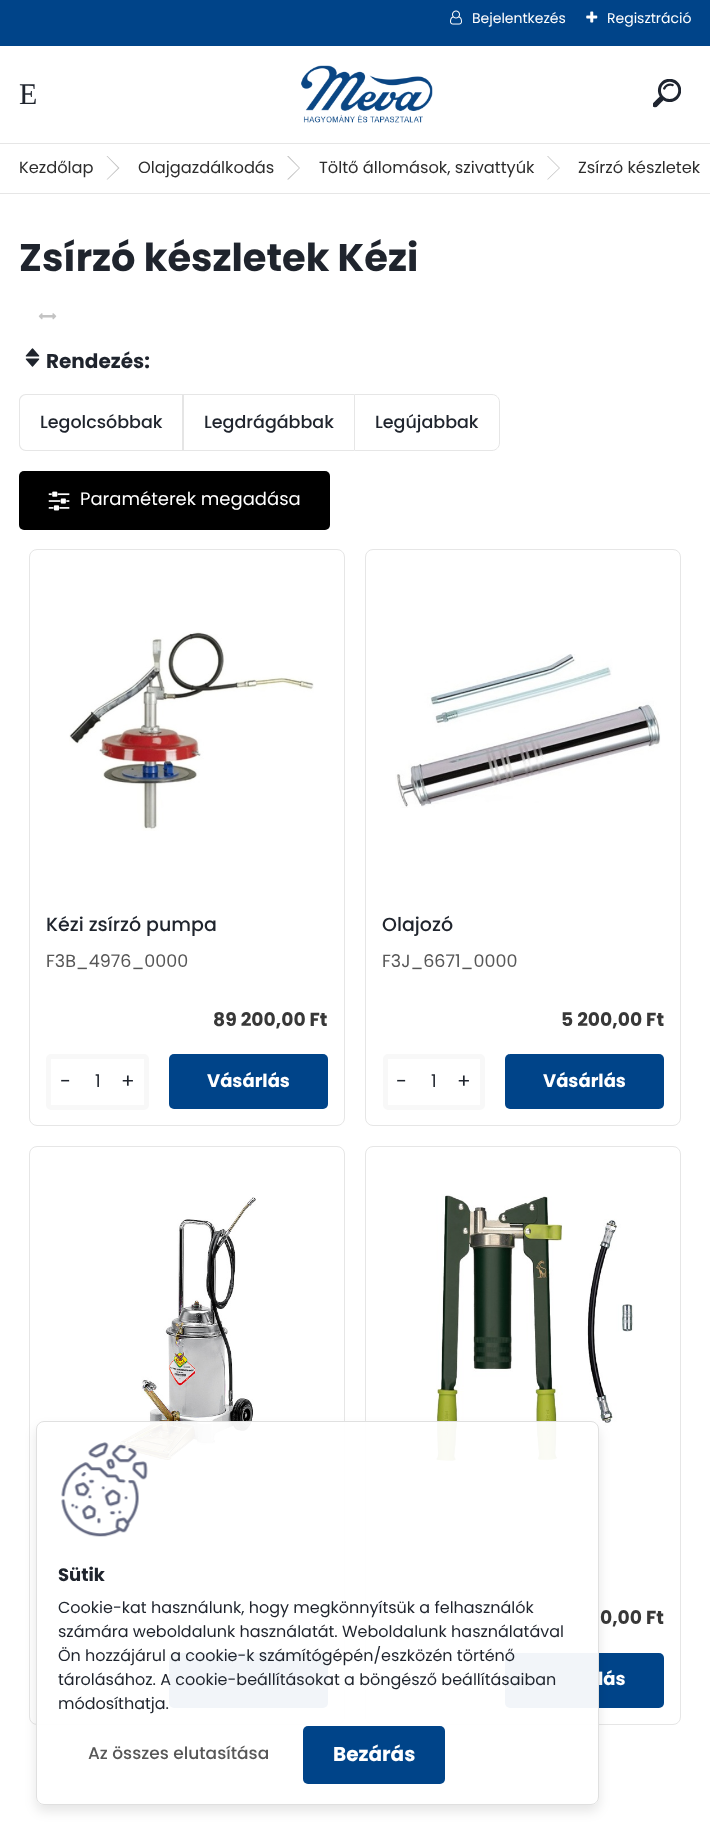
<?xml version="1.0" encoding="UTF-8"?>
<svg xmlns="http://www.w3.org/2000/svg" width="710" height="1841">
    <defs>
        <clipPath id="clip1"><path d="M 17 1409 H 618 V 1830 H 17 Z M 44 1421 H 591 C 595.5 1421 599 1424.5 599 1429 V 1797 C 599 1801.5 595.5 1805 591 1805 H 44 C 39.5 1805 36 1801.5 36 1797 V 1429 C 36 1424.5 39.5 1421 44 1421 Z" clip-rule="evenodd"/></clipPath>
        <filter id="blur1" x="-50%" y="-200%" width="200%" height="500%"><feGaussianBlur stdDeviation="6"/></filter>
    </defs>
    <rect width="100%" height="100%" fill="#FFFFFF"/>
    <rect x="0" y="0" width="710" height="46" fill="#004489"/>
    <image x="450" y="10" width="12" height="15" href="img_01.png"/>
    <text x="472" y="23" font-family="Poppins" font-size="14" fill="#FFFFFF">Bejelentkezés</text>
    <image x="586" y="11" width="12" height="12" href="img_02.png"/>
    <text x="607" y="23" font-family="Poppins" font-size="14" fill="#FFFFFF">Regisztráció</text>
    <rect x="0" y="143" width="710" height="1" fill="#E6E6E6"/>
    <text x="19" y="104" font-family="Liberation Serif" font-size="30" fill="#1F242D">E</text>
    <image x="301" y="65" width="132" height="58" href="img_03.png"/>
    <image x="653" y="79" width="28" height="29" href="img_04.png"/>
    <rect x="0" y="193" width="710" height="1" fill="#E6E6E6"/>
    <text x="19" y="173" font-family="Poppins" font-size="16.25" fill="#2D2D2D">Kezdőlap</text>
    <path d="M 106.5 156 H 107.5 L 119.5 168 H 118 Z M 118 168 H 119.5 L 107.5 179.5 H 106.5 Z" fill="#C3C3C3"/>
    <text x="138" y="173" font-family="Poppins" font-size="16.25" fill="#2D2D2D">Olajgazdálkodás</text>
    <path d="M 287 156 H 288.5 L 300 168 H 299 Z M 299 168 H 300 L 288.5 179.5 H 287 Z" fill="#C3C3C3"/>
    <text x="319" y="173" font-family="Poppins" font-size="16.25" fill="#2D2D2D">Töltő állomások, szivattyúk</text>
    <path d="M 547 156 H 548 L 560 168 H 559 Z M 559 168 H 560 L 548 179.5 H 547 Z" fill="#C3C3C3"/>
    <text x="578" y="173" font-family="Poppins" font-size="16.25" fill="#2D2D2D">Zsírzó készletek</text>
    <text x="19" y="271" font-family="Poppins" font-size="38.4" font-weight="700" fill="#1F242D">Zsírzó készletek Kézi</text>
    <image x="38" y="313" width="19" height="7" href="img_05.png"/>
    <image x="25" y="348" width="15" height="19" href="img_06.png"/>
    <text x="46" y="368" font-family="Poppins" font-size="20" font-weight="700" fill="#1F242D">Rendezés:</text>
    <path d="M 26 394 H 182 V 451 H 26 C 22 451 19 448 19 444 V 401 C 19 397 22 394 26 394 Z M 26 395 H 182 V 450 H 26 C 23 450 20 447 20 444 V 401 C 20 398 23 395 26 395 Z" fill="#E6E6E6" fill-rule="evenodd"/>
    <text x="40" y="428" font-family="Poppins" font-size="17.5" font-weight="500" fill="#1F242D">Legolcsóbbak</text>
    <path d="M 182 394 H 354 V 395 H 184 Z" fill="#E6E6E6"/>
    <path d="M 354 451 H 182 L 184 450 H 354 Z" fill="#E6E6E6"/>
    <path d="M 182 451 V 394 L 184 395 V 450 Z" fill="#000000" fill-opacity="0.1"/>
    <text x="204" y="428" font-family="Poppins" font-size="17.5" font-weight="500" fill="#1F242D">Legdrágábbak</text>
    <path d="M 354.5 394.5 H 492 C 496 394.5 499.5 398 499.5 402 V 443 C 499.5 447 496 450.5 492 450.5 H 354.5 Z" fill="none" stroke="#E6E6E6"/>
    <text x="375" y="428" font-family="Poppins" font-size="17.5" font-weight="500" fill="#1F242D">Legújabbak</text>
    <rect x="19" y="471" width="311" height="59" rx="5" fill="#000000"/>
    <image x="48" y="491" width="22" height="20" href="img_07.png"/>
    <text x="80" y="505" font-family="Poppins" font-size="18" fill="#FFFFFF">Paraméterek megadása</text>
    <rect x="29.5" y="549.5" width="315" height="576" rx="7.5" fill="none" stroke="#E6E6E6"/>
    <image x="69" y="631" width="245" height="200" href="img_08.png"/>
    <text x="46" y="931" font-family="Poppins" font-size="19" font-weight="500" fill="#1F242D">Kézi zsírzó pumpa</text>
    <text x="46" y="967" font-family="Poppins" font-size="17.5" fill="#575757">F3B_4976_0000</text>
    <text x="213" y="1026" font-family="Poppins" font-size="18.75" font-weight="700" fill="#383838">89 200,00 Ft</text>
    <rect x="48.5" y="1056.5" width="98" height="51" rx="2.5" fill="none" stroke="#F8F8F8" stroke-width="5"/>
    <text x="60" y="1088" font-family="Poppins" font-size="20" fill="#1F242D">-</text>
    <text x="95" y="1087" font-family="Poppins" font-size="17.5" fill="#1F242D">1</text>
    <text x="121" y="1088" font-family="Poppins" font-size="20" fill="#1F242D">+</text>
    <rect x="169" y="1054" width="159" height="55" rx="5" fill="#004489"/>
    <text x="207" y="1087" font-family="Poppins" font-size="18" font-weight="700" fill="#FFFFFF">Vásárlás</text>
    <rect x="365.5" y="549.5" width="315" height="576" rx="7.5" fill="none" stroke="#E6E6E6"/>
    <image x="395" y="654" width="266" height="154" href="img_09.png"/>
    <text x="382" y="931" font-family="Poppins" font-size="19" font-weight="500" fill="#1F242D">Olajozó</text>
    <text x="382" y="967" font-family="Poppins" font-size="17.5" fill="#575757">F3J_6671_0000</text>
    <text x="561" y="1026" font-family="Poppins" font-size="18.75" font-weight="700" fill="#383838">5 200,00 Ft</text>
    <rect x="385.5" y="1056.5" width="97" height="51" rx="2.5" fill="none" stroke="#F8F8F8" stroke-width="5"/>
    <text x="396" y="1088" font-family="Poppins" font-size="20" fill="#1F242D">-</text>
    <text x="431" y="1087" font-family="Poppins" font-size="17.5" fill="#1F242D">1</text>
    <text x="457" y="1088" font-family="Poppins" font-size="20" fill="#1F242D">+</text>
    <rect x="505" y="1054" width="159" height="55" rx="5" fill="#004489"/>
    <text x="543" y="1087" font-family="Poppins" font-size="18" font-weight="700" fill="#FFFFFF">Vásárlás</text>
    <rect x="29.5" y="1146.5" width="315" height="578" rx="7.5" fill="none" stroke="#E6E6E6"/>
    <image x="118" y="1197" width="138" height="265" href="img_10.png"/>
    <rect x="48.5" y="1653.5" width="98" height="52" rx="2.5" fill="none" stroke="#F8F8F8" stroke-width="5"/>
    <rect x="169" y="1653" width="159" height="55" rx="5" fill="#004489"/>
    <rect x="365.5" y="1146.5" width="315" height="578" rx="7.5" fill="none" stroke="#E6E6E6"/>
    <image x="436" y="1194" width="198" height="272" href="img_11.png"/>
    <text x="600" y="1624" font-family="Poppins" font-size="18.75" font-weight="700" fill="#383838">0,00 Ft</text>
    <rect x="385.5" y="1653.5" width="97" height="52" rx="2.5" fill="none" stroke="#F8F8F8" stroke-width="5"/>
    <rect x="505" y="1653" width="159" height="55" rx="5" fill="#004489"/>
    <text x="598" y="1685" font-family="Poppins" font-size="18" font-weight="700" fill="#FFFFFF">lás</text>
    <g clip-path="url(#clip1)">
        <rect x="36" y="1428" width="563" height="383" rx="8" fill="#000000" fill-opacity="0.1" filter="url(#blur1)"/>
    </g>
    <rect x="36.5" y="1421.5" width="562" height="383" rx="7.5" fill="#FFFFFF" fill-opacity="0.95" stroke="#E0E0E0"/>
    <image x="61" y="1442" width="87" height="95" href="img_12.png"/>
    <text x="58" y="1581" font-family="Poppins" font-size="18" font-weight="700" fill="#1F242D">Sütik</text>
    <text font-family="Poppins" font-size="16" fill="#1F242D">
        <tspan x="58" y="1613">Cookie-kat használunk, hogy megkönnyítsük a felhasználók</tspan>
        <tspan x="58" y="1637">számára weboldalunk használatát. Weboldalunk használatával</tspan>
        <tspan x="58" y="1661">Ön hozzájárul a cookie-k számítógépén/eszközén történő</tspan>
        <tspan x="58" y="1685">tárolásához. A cookie-beállításokat a böngésző beállításaiban</tspan>
        <tspan x="58" y="1709">módosíthatja.</tspan>
    </text>
    <text x="88" y="1759" font-family="Poppins" font-size="17" font-weight="500" fill="#575757">Az összes elutasítása</text>
    <rect x="303" y="1726" width="142" height="58" rx="5" fill="#004489"/>
    <text x="333" y="1761" font-family="Poppins" font-size="20" font-weight="700" fill="#FFFFFF">Bezárás</text>
</svg>
